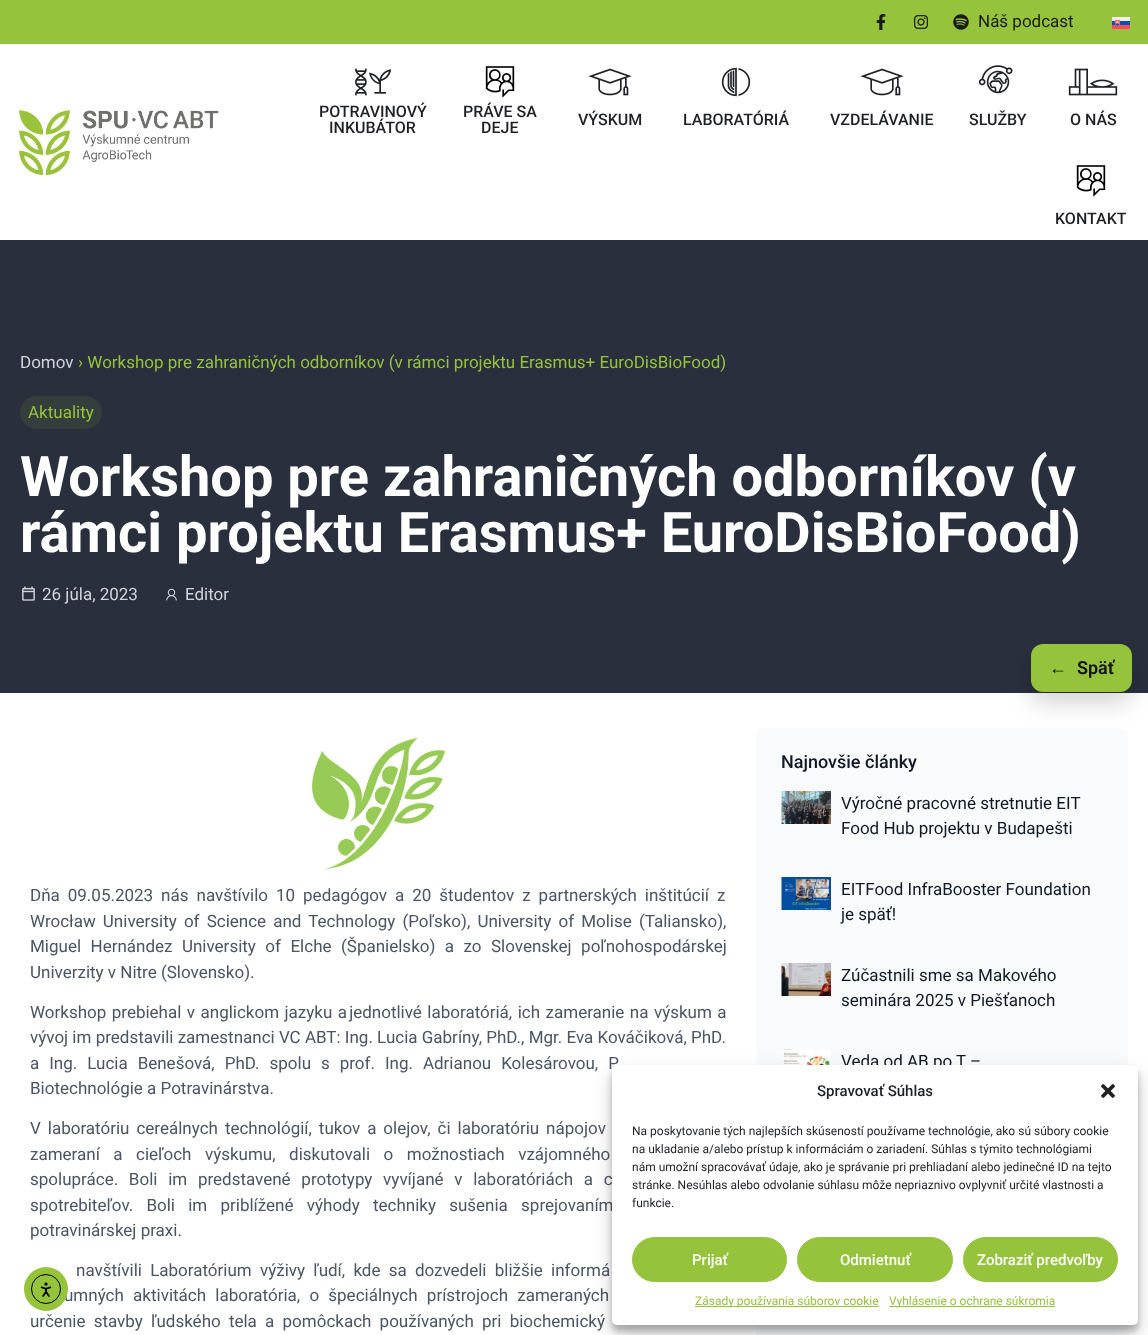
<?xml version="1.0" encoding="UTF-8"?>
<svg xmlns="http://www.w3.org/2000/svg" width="1148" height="1335">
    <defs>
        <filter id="blur1" x="-50%" y="-200%" width="200%" height="500%"><feGaussianBlur stdDeviation="12"/></filter>
        <filter id="blur2" x="-50%" y="-200%" width="200%" height="500%"><feGaussianBlur stdDeviation="3"/></filter>
        <filter id="blur3" x="-50%" y="-200%" width="200%" height="500%"><feGaussianBlur stdDeviation="10"/></filter>
    </defs>
    <rect width="100%" height="100%" fill="#FFFFFF"/>
    <rect x="0" y="0" width="1148" height="44" fill="#96C33C"/>
    <image x="876" y="14" width="10" height="16" href="img_01.png"/>
    <image x="914" y="15" width="14" height="14" href="img_02.png"/>
    <image x="953" y="14" width="16" height="16" href="img_03.png"/>
    <text x="978" y="27" font-family="Roboto" font-size="17" fill="#1A1A1A">Náš podcast</text>
    <image x="1112" y="17" width="18" height="12" href="img_04.png"/>
    <image x="19" y="110" width="200" height="66" href="img_05.png"/>
    <image x="355" y="68" width="37" height="28" href="img_06.png"/>
    <text x="319" y="117" font-family="Roboto" font-size="16" font-weight="500" fill="#1F2124">POTRAVINOVÝ</text>
    <text x="329" y="133" font-family="Roboto" font-size="16" font-weight="500" fill="#1F2124">INKUBÁTOR</text>
    <image x="485" y="66" width="30" height="32" href="img_07.png"/>
    <text x="463" y="117" font-family="Roboto" font-size="16" font-weight="500" fill="#1F2124">PRÁVE SA</text>
    <text x="481" y="133" font-family="Roboto" font-size="16" font-weight="500" fill="#1F2124">DEJE</text>
    <image x="588" y="68" width="44" height="28" href="img_08.png"/>
    <text x="578" y="125" font-family="Roboto" font-size="16" font-weight="500" fill="#1F2124">VÝSKUM</text>
    <image x="721" y="67" width="30" height="30" href="img_09.png"/>
    <text x="683" y="125" font-family="Roboto" font-size="16" font-weight="500" fill="#1F2124">LABORATÓRIÁ</text>
    <image x="860" y="68" width="44" height="28" href="img_08.png"/>
    <text x="830" y="125" font-family="Roboto" font-size="16" font-weight="500" fill="#1F2124">VZDELÁVANIE</text>
    <image x="978" y="65" width="35" height="29" href="img_10.png"/>
    <text x="969" y="125" font-family="Roboto" font-size="16" font-weight="500" fill="#1F2124">SLUŽBY</text>
    <image x="1068" y="68" width="50" height="28" href="img_11.png"/>
    <text x="1070" y="125" font-family="Roboto" font-size="16" font-weight="500" fill="#1F2124">O NÁS</text>
    <image x="1076" y="165" width="30" height="32" href="img_07.png"/>
    <text x="1055" y="224" font-family="Roboto" font-size="16" font-weight="500" fill="#1F2124">KONTAKT</text>
    <rect x="0" y="240" width="1148" height="453" fill="#292F3D"/>
    <text x="20" y="368" font-family="Roboto" font-size="17" fill="#D1D5DB">Domov</text>
    <text x="78" y="368" font-family="Roboto" font-size="17" fill="#96C33C">› Workshop pre zahraničných odborníkov (v rámci projektu Erasmus+ EuroDisBioFood)</text>
    <rect x="20" y="396" width="82" height="33" rx="16.5" fill="#343E3D"/>
    <text x="28" y="418" font-family="Roboto" font-size="17" fill="#96C33C">Aktuality</text>
    <text font-family="Roboto" font-size="56" font-weight="700" fill="#FFFFFF">
        <tspan x="20" y="496">Workshop pre zahraničných odborníkov (v</tspan>
        <tspan x="20" y="552">rámci projektu Erasmus+ EuroDisBioFood)</tspan>
    </text>
    <image x="22" y="586" width="13" height="15" href="img_12.png"/>
    <text x="42" y="600" font-family="Roboto" font-size="17" fill="#D1D5DB">26 júla, 2023</text>
    <image x="166" y="588" width="11" height="13" href="img_13.png"/>
    <text x="185" y="600" font-family="Roboto" font-size="17" fill="#D1D5DB">Editor</text>
    <image x="312" y="738" width="133" height="131" href="img_14.png"/>
    <text x="30" y="901" word-spacing="3.75" font-family="Roboto" font-size="17" fill="#4B5563">Dňa 09.05.2023 nás navštívilo</text>
    <text x="276" y="901" word-spacing="3.75" font-family="Roboto" font-size="17" fill="#4B5563">10 pedagógov a 20 študentov z partnerských inštitúcií z</text>
    <text font-family="Roboto" font-size="17" fill="#4B5563">
        <tspan x="30" y="927" word-spacing="2.9">Wrocław University of Science and Technology (Poľsko), University of Molise (Taliansko),</tspan>
        <tspan x="30" y="952" word-spacing="5.25">Miguel Hernández University of Elche (Španielsko) a zo Slovenskej poľnohospodárskej</tspan>
        <tspan x="30" y="978">Univerzity v Nitre (Slovensko).</tspan>
    </text>
    <text font-family="Roboto" font-size="17" fill="#4B5563">
        <tspan x="30" y="1018" word-spacing="1.25">Workshop prebiehal v anglickom jazyku a jednotlivé laboratóriá, ich zameranie na výskum a</tspan>
        <tspan x="30" y="1043">vývoj im predstavili zamestnanci VC ABT: Ing. Lucia Gabríny, PhD., Mgr. Eva Kováčiková, PhD.</tspan>
        <tspan x="30" y="1069" word-spacing="5.75">a Ing. Lucia Benešová, PhD. spolu s prof. Ing. Adrianou Kolesárovou, P</tspan>
        <tspan x="30" y="1094">Biotechnológie a Potravinárstva.</tspan>
    </text>
    <text font-family="Roboto" font-size="17" fill="#4B5563">
        <tspan x="30" y="1134" word-spacing="2.75">V laboratóriu cereálnych technológií, tukov a olejov, či laboratóriu nápojov</tspan>
        <tspan x="30" y="1160" word-spacing="9.25">zameraní a cieľoch výskumu, diskutovali o možnostiach vzájomného</tspan>
        <tspan x="30" y="1185" word-spacing="6.5">spolupráce. Boli im predstavené prototypy vyvíjané v laboratóriách a c</tspan>
        <tspan x="30" y="1211" word-spacing="9">spotrebiteľov. Boli im priblížené výhody techniky sušenia sprejovaním</tspan>
        <tspan x="30" y="1236">potravinárskej praxi.</tspan>
    </text>
    <text x="76" y="1276" word-spacing="4" font-family="Roboto" font-size="17" fill="#4B5563">navštívili Laboratórium výživy ľudí, kde sa dozvedeli bližšie informá</text>
    <text x="64" y="1301" word-spacing="5" font-family="Roboto" font-size="17" fill="#4B5563">umných aktivitách laboratória, o špeciálnych prístrojoch zameraných</text>
    <text x="30" y="1327" word-spacing="4" font-family="Roboto" font-size="17" fill="#4B5563">určenie stavby ľudského tela a pomôckach používaných pri biochemický</text>
    <rect x="756" y="728" width="372" height="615" rx="8" fill="#F9FAFB"/>
    <text x="781" y="768" font-family="Roboto" font-size="18" font-weight="500" fill="#111827">Najnovšie články</text>
    <image x="781" y="791" width="50" height="33" href="img_15.png"/>
    <text font-family="Roboto" font-size="17" fill="#111827">
        <tspan x="841" y="809">Výročné pracovné stretnutie EIT</tspan>
        <tspan x="841" y="834">Food Hub projektu v Budapešti</tspan>
    </text>
    <image x="781" y="877" width="50" height="33" href="img_16.png"/>
    <text font-family="Roboto" font-size="17" fill="#111827">
        <tspan x="841" y="895">EITFood InfraBooster Foundation</tspan>
        <tspan x="841" y="920">je späť!</tspan>
    </text>
    <image x="781" y="963" width="50" height="33" href="img_17.png"/>
    <text font-family="Roboto" font-size="17" fill="#111827">
        <tspan x="841" y="981">Zúčastnili sme sa Makového</tspan>
        <tspan x="841" y="1006">seminára 2025 v Piešťanoch</tspan>
    </text>
    <image x="782" y="1049" width="49" height="16" href="img_18.png"/>
    <text x="841" y="1067" font-family="Roboto" font-size="17" fill="#111827">Veda od AB po T –</text>
    <rect x="1031" y="654" width="101" height="48" rx="12" fill="#000000" fill-opacity="0.18" filter="url(#blur1)"/>
    <rect x="1031" y="644" width="101" height="48" rx="12" fill="#96C33C"/>
    <text x="1049" y="674" font-family="Liberation Sans" font-size="18" font-weight="700" fill="#111111">←</text>
    <text x="1077" y="674" font-family="Roboto" font-size="18" font-weight="600" fill="#111111">Späť</text>
    <circle cx="46" cy="1289" r="22" fill="#96C33C"/>
    <circle cx="46" cy="1289" r="14.5" fill="none" stroke="#000000"/>
    <image x="40" y="1282" width="12" height="15" href="img_19.png"/>
    <rect x="612" y="1071" width="526" height="260" rx="5" fill="#000000" fill-opacity="0.23" filter="url(#blur2)"/>
    <rect x="612" y="1075" width="526" height="260" rx="5" fill="#000000" fill-opacity="0.19" filter="url(#blur3)"/>
    <rect x="612" y="1065" width="526" height="260" rx="5" fill="#FFFFFF"/>
    <text x="817" y="1096" font-family="Roboto" font-size="15" font-weight="500" fill="#1F2124">Spravovať Súhlas</text>
    <image x="1101" y="1084" width="14" height="14" href="img_20.png"/>
    <text font-family="Roboto" font-size="12" fill="#1F2124">
        <tspan x="632" y="1135">Na poskytovanie tých najlepších skúseností používame technológie, ako sú súbory cookie</tspan>
        <tspan x="632" y="1153">na ukladanie a/alebo prístup k informáciám o zariadení. Súhlas s týmito technológiami</tspan>
        <tspan x="632" y="1171">nám umožní spracovávať údaje, ako je správanie pri prehliadaní alebo jedinečné ID na tejto</tspan>
        <tspan x="632" y="1189">stránke. Nesúhlas alebo odvolanie súhlasu môže nepriaznivo ovplyvniť určité vlastnosti a</tspan>
        <tspan x="632" y="1207">funkcie.</tspan>
    </text>
    <rect x="632.5" y="1237.5" width="154" height="44" rx="22" fill="#96C33C" stroke="#96C33C"/>
    <text x="692" y="1265" font-family="Roboto" font-size="15" font-weight="500" fill="#FFFFFF">Prijať</text>
    <rect x="797.5" y="1237.5" width="155" height="44" rx="22" fill="#96C33C" stroke="#96C33C"/>
    <text x="840" y="1265" font-family="Roboto" font-size="15" font-weight="500" fill="#FFFFFF">Odmietnuť</text>
    <rect x="963.5" y="1237.5" width="154" height="44" rx="22" fill="#96C33C" stroke="#96C33C"/>
    <text x="977" y="1265" font-family="Roboto" font-size="15" font-weight="500" fill="#FFFFFF">Zobraziť predvoľby</text>
    <rect x="695" y="1306" width="184" height="1" fill="#96C33C"/>
    <text x="695" y="1305" font-family="Roboto" font-size="12" fill="#96C33C">Zásady používania súborov cookie</text>
    <rect x="889" y="1306" width="166" height="1" fill="#96C33C"/>
    <text x="889" y="1305" font-family="Roboto" font-size="12" fill="#96C33C">Vyhlásenie o ochrane súkromia</text>
</svg>
